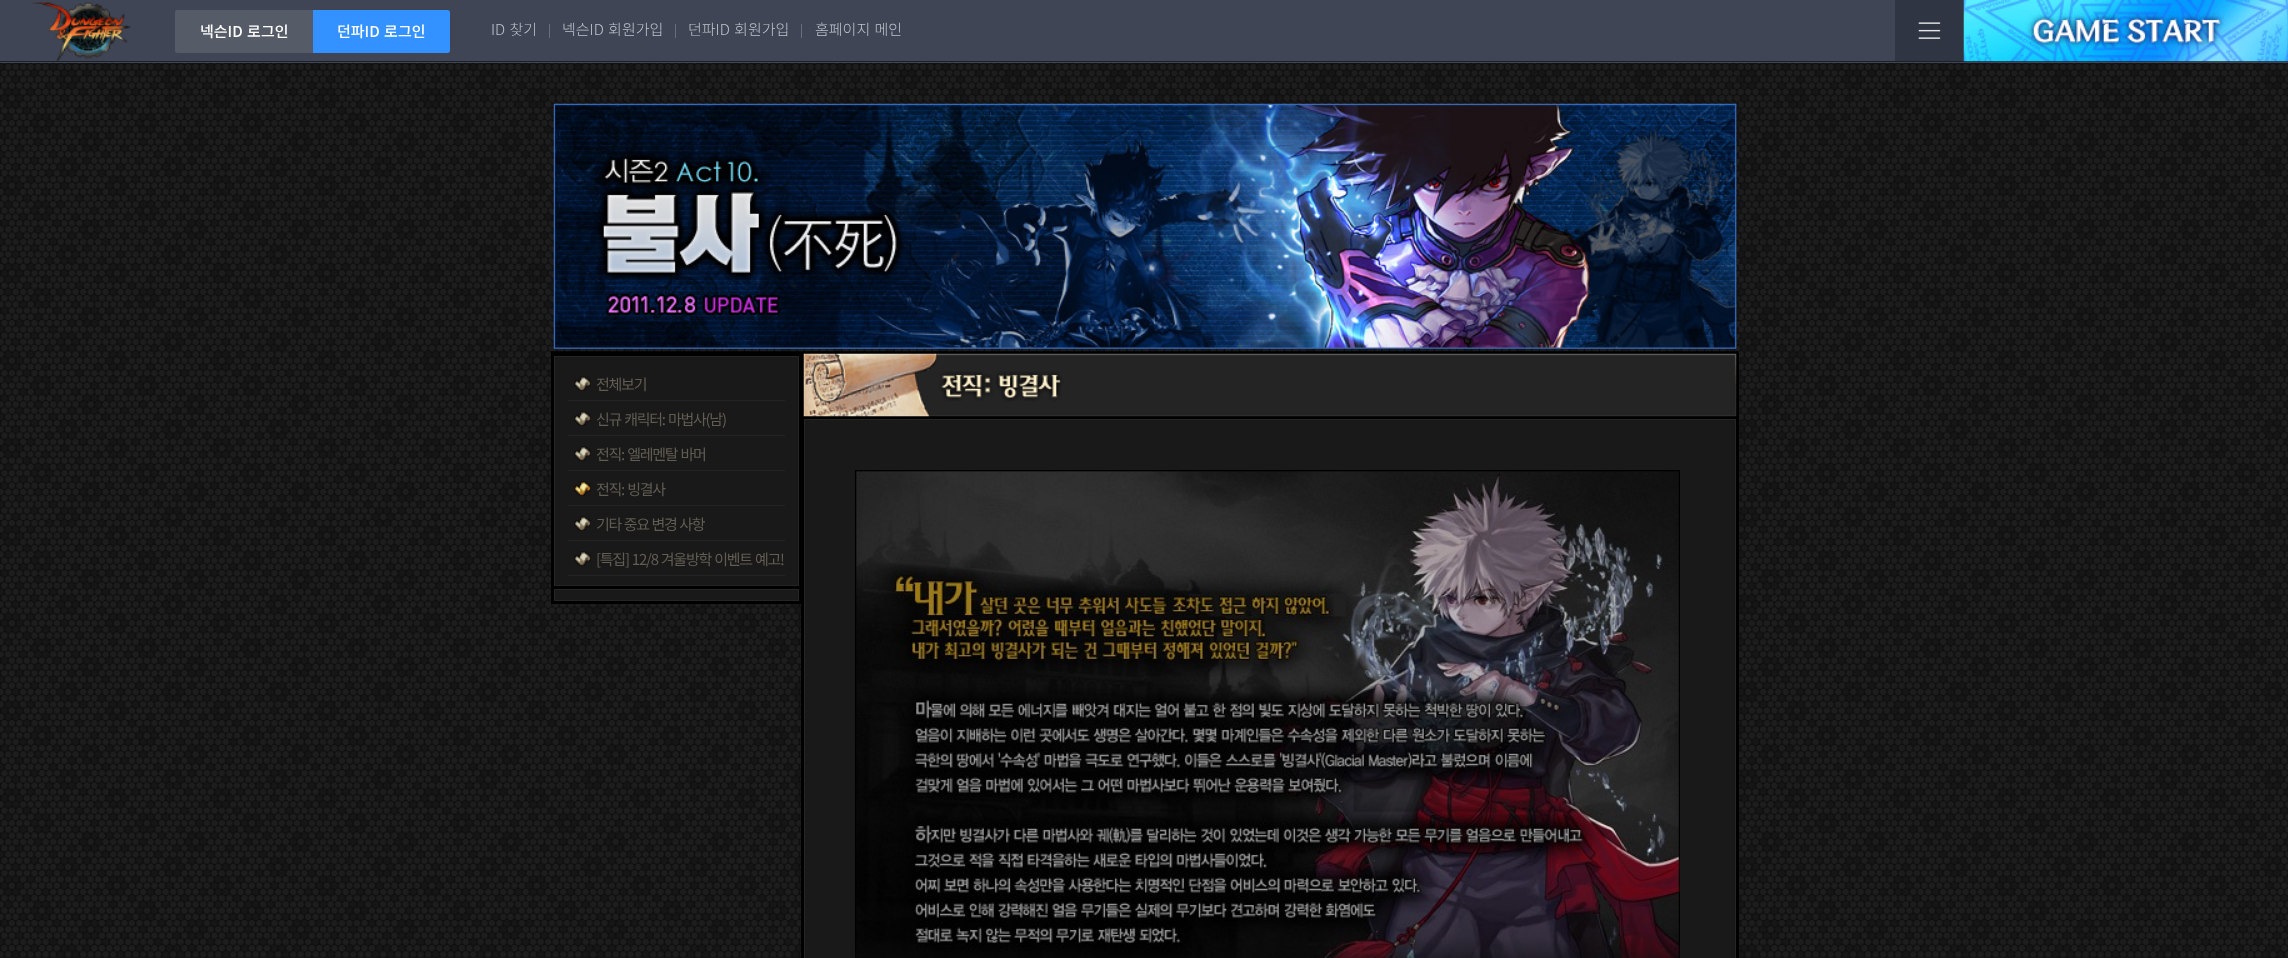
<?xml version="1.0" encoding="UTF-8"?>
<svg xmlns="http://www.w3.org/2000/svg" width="2288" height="958">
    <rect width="100%" height="100%" fill="#FFFFFF"/>
    <image x="0" y="63" width="2288" height="895" href="img_01.png"/>
    <rect x="0" y="0" width="2288" height="63" fill="#3F4554"/>
    <rect x="0" y="61" width="2288" height="1" fill="#1D2127"/>
    <image x="32" y="2" width="99" height="59" href="img_02.png"/>
    <path d="M 177.5 10 H 313 V 53 H 177.5 C 176 53 175 52 175 50.5 V 12.5 C 175 11 176 10 177.5 10 Z" fill="#565B68"/>
    <text x="200" y="37" word-spacing="1" font-family="Noto Sans KR" font-size="15" font-weight="500" fill="#FFFFFF">넥슨ID 로그인</text>
    <path d="M 313 10 H 447.5 C 449 10 450 11 450 12.5 V 50.5 C 450 52 449 53 447.5 53 H 313 Z" fill="#3392FF"/>
    <text x="337" y="37" word-spacing="1" font-family="Noto Sans KR" font-size="15" font-weight="500" fill="#FFFFFF">던파ID 로그인</text>
    <text x="491" y="35" word-spacing="1" font-family="Noto Sans KR" font-size="15" font-weight="300" fill="#BEC5CC">ID 찾기</text>
    <rect x="549" y="24" width="1" height="14" fill="#6A6E76"/>
    <text x="562" y="35" word-spacing="1" font-family="Noto Sans KR" font-size="15" font-weight="300" fill="#BEC5CC">넥슨ID 회원가입</text>
    <rect x="675" y="24" width="1" height="14" fill="#6A6E76"/>
    <text x="688" y="35" word-spacing="1" font-family="Noto Sans KR" font-size="15" font-weight="300" fill="#BEC5CC">던파ID 회원가입</text>
    <rect x="801" y="24" width="1" height="14" fill="#6A6E76"/>
    <text x="815" y="35" word-spacing="1" font-family="Noto Sans KR" font-size="15" font-weight="300" fill="#BEC5CC">홈페이지 메인</text>
    <image x="1895" y="0" width="69" height="61" href="img_03.png"/>
    <image x="1963" y="0" width="325" height="62" href="img_04.png"/>
    <rect x="551" y="351" width="250" height="253" fill="#000000"/>
    <rect x="801" y="351" width="938" height="607" fill="#000000"/>
    <image x="551" y="101" width="1188" height="251" href="img_05.png"/>
    <rect x="554.5" y="356.5" width="244" height="229" fill="#191919" stroke="#252525"/>
    <image x="574" y="376" width="17" height="15" href="img_06.png"/>
    <rect x="568" y="400" width="217" height="1" fill="#242424"/>
    <text x="596" y="390" font-family="Noto Sans KR" font-size="15" letter-spacing="-1.25" fill="#615D52">전체보기</text>
    <image x="574" y="411" width="17" height="15" href="img_06.png"/>
    <rect x="568" y="435" width="217" height="1" fill="#242424"/>
    <text x="596" y="425" word-spacing="1" font-family="Noto Sans KR" font-size="15" letter-spacing="-1.25" fill="#615D52">신규 캐릭터: 마법사(남)</text>
    <image x="574" y="446" width="17" height="15" href="img_06.png"/>
    <rect x="568" y="470" width="217" height="1" fill="#242424"/>
    <text x="596" y="460" word-spacing="1" font-family="Noto Sans KR" font-size="15" letter-spacing="-1.25" fill="#615D52">전직: 엘레멘탈 바머</text>
    <image x="574" y="481" width="17" height="15" href="img_07.png"/>
    <rect x="568" y="505" width="217" height="1" fill="#242424"/>
    <text x="596" y="495" word-spacing="1" font-family="Noto Sans KR" font-size="15" letter-spacing="-1.25" fill="#615D52">전직: 빙결사</text>
    <image x="574" y="516" width="17" height="15" href="img_06.png"/>
    <rect x="568" y="540" width="217" height="1" fill="#242424"/>
    <text x="596" y="530" word-spacing="0.5" font-family="Noto Sans KR" font-size="15" letter-spacing="-1.25" fill="#615D52">기타 중요 변경 사항</text>
    <image x="574" y="551" width="17" height="15" href="img_06.png"/>
    <rect x="568" y="575" width="217" height="1" fill="#242424"/>
    <text x="596" y="565" word-spacing="1" font-family="Noto Sans KR" font-size="15" letter-spacing="-1.25" fill="#615D52">[특집] 12/8 겨울방학 이벤트 예고!</text>
    <rect x="554.5" y="589.5" width="244" height="11" fill="#191919" stroke="#252525"/>
    <image x="803" y="353" width="934" height="64" href="img_08.png"/>
    <rect x="804.5" y="419.5" width="931" height="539" fill="#191919" stroke="#252525"/>
    <image x="855" y="470" width="825" height="488" href="img_09.png"/>
</svg>
